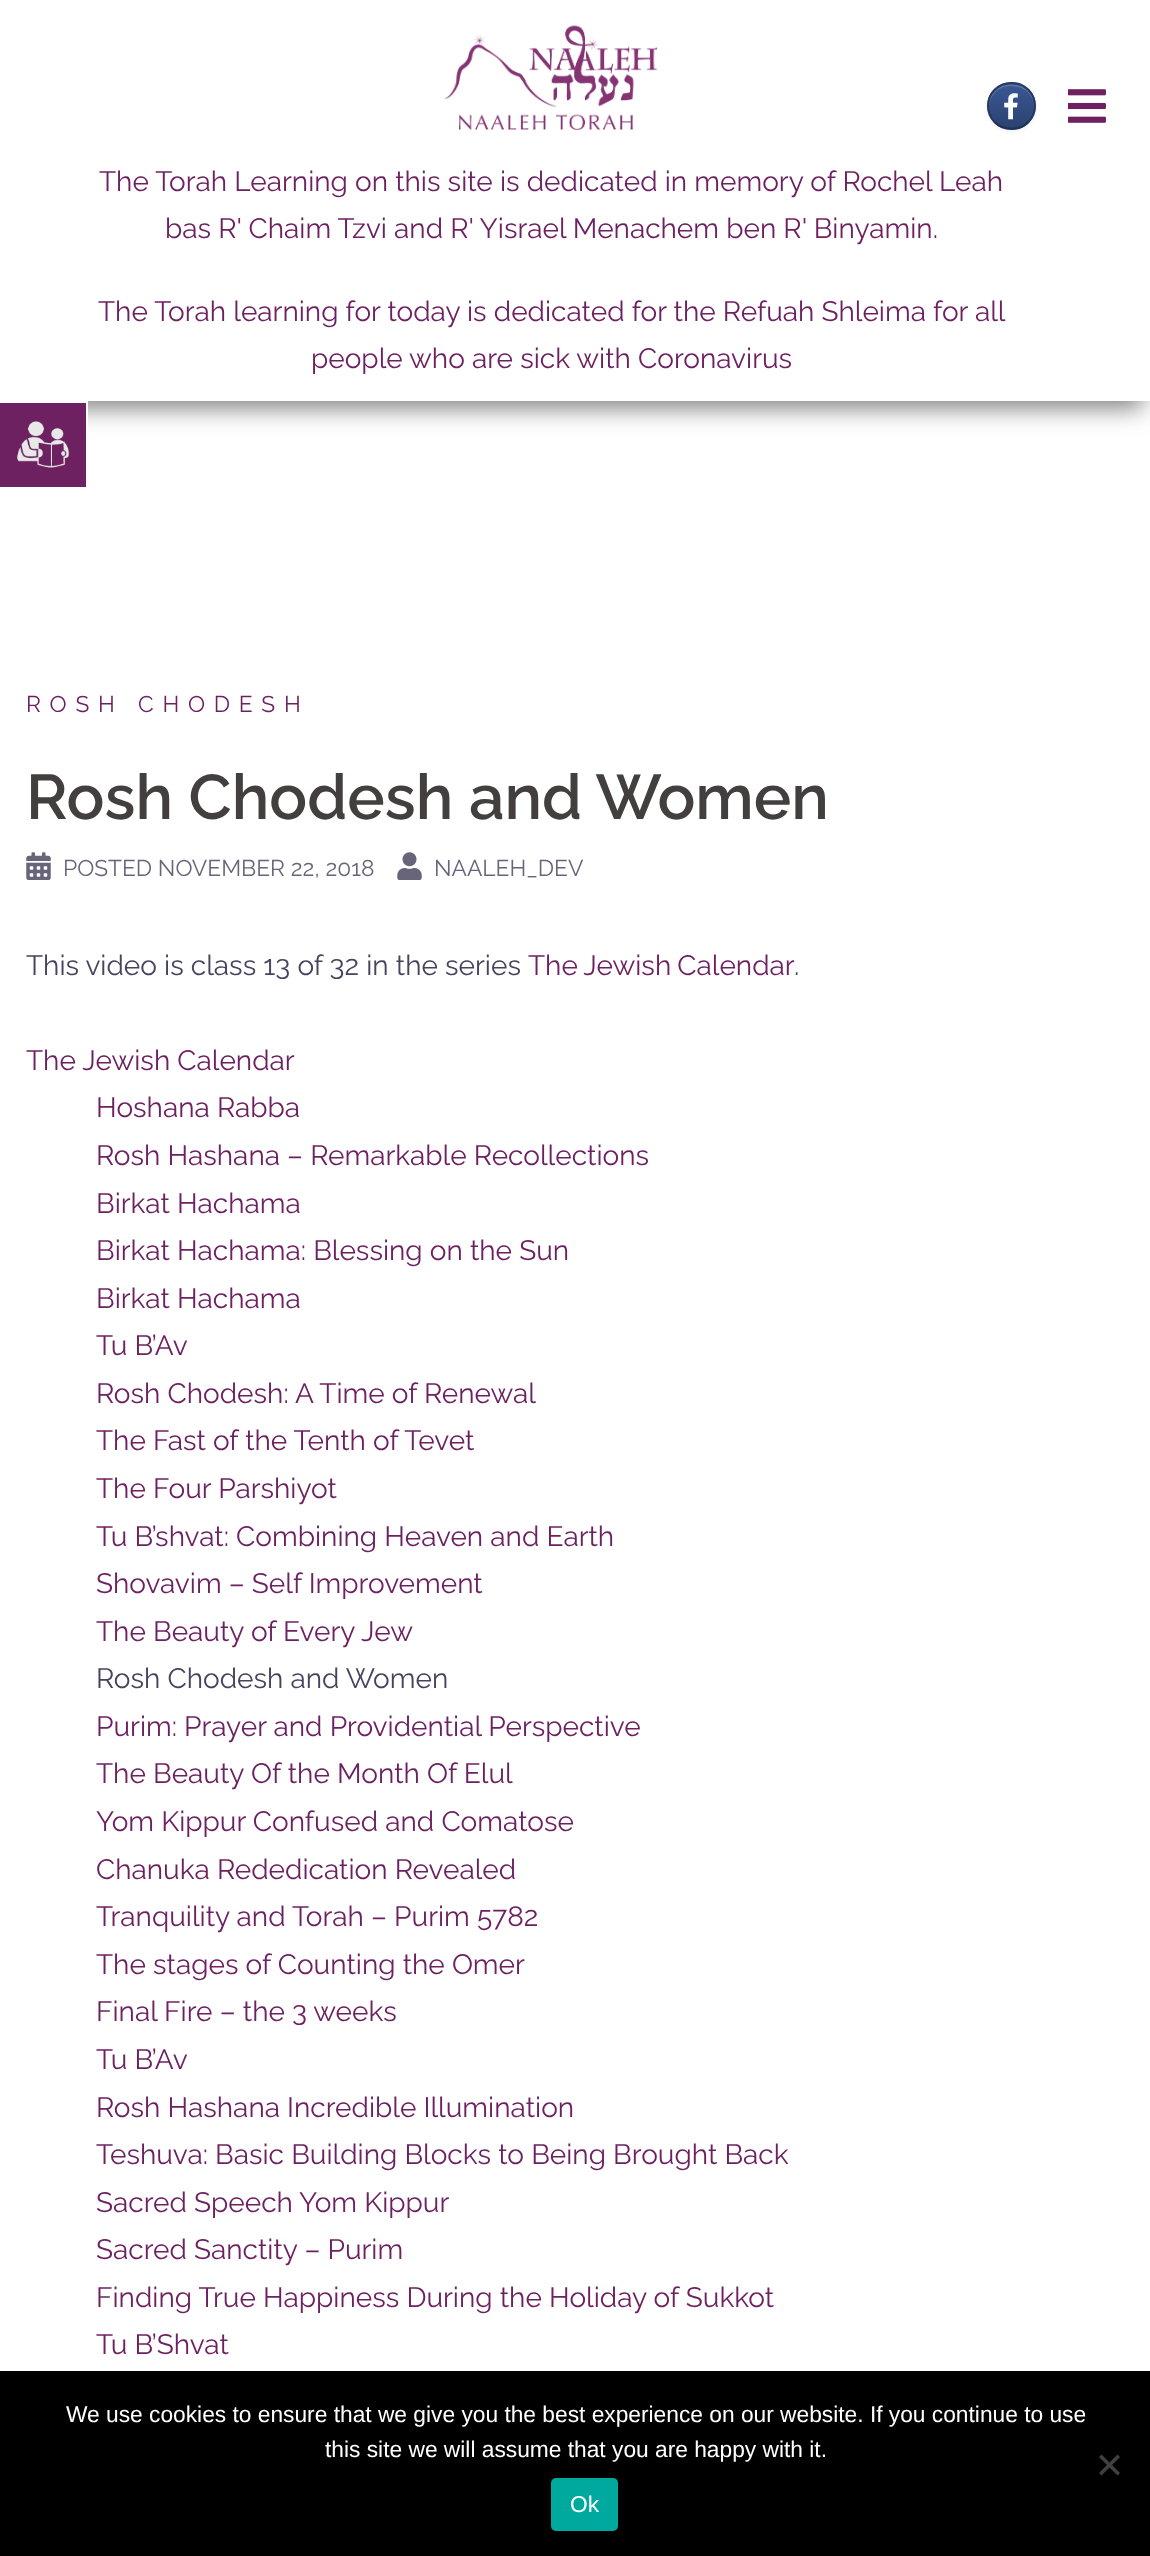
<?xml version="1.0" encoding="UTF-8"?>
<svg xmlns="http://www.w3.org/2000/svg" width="1150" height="2556">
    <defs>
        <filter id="blur1" x="-50%" y="-200%" width="200%" height="500%"><feGaussianBlur stdDeviation="12"/></filter>
        <filter id="blur2" x="-50%" y="-200%" width="200%" height="500%"><feGaussianBlur stdDeviation="2"/></filter>
        <clipPath id="clip1"><rect x="987" y="82" width="49" height="48" rx="24"/></clipPath>
        <linearGradient id="g1" gradientUnits="userSpaceOnUse" x1="989" y1="84" x2="989" y2="40"><stop offset="0" stop-color="#2C4270"/><stop offset="1" stop-color="#3A5795"/></linearGradient>
        <linearGradient id="g2" gradientUnits="userSpaceOnUse" x1="989" y1="128" x2="989" y2="84"><stop offset="0" stop-color="#2C4270"/><stop offset="1" stop-color="#3A5795"/></linearGradient>
        <linearGradient id="g3" gradientUnits="userSpaceOnUse" x1="989" y1="172" x2="989" y2="128"><stop offset="0" stop-color="#2C4270"/><stop offset="1" stop-color="#3A5795"/></linearGradient>
    </defs>
    <rect width="100%" height="100%" fill="#FFFFFF"/>
    <rect x="9" y="25" width="1134" height="383" fill="#808080" filter="url(#blur1)"/>
    <rect x="0" y="0" width="1150" height="401" fill="#FFFFFF"/>
    <image x="444" y="25" width="214" height="105" href="img_01.png"/>
    <rect x="987" y="84" width="49" height="47" rx="23.5" fill="#000000" fill-opacity="0.07" filter="url(#blur2)"/>
    <g clip-path="url(#clip1)">
        <rect x="1001" y="82" width="21" height="2" fill="url(#g1)"/>
        <rect x="987" y="84" width="49" height="44" fill="url(#g2)"/>
        <rect x="1001" y="128" width="21" height="2" fill="url(#g3)"/>
    </g>
    <path d="M 1011 86 C 1026 86 1034 96 1034 107 C 1035 77 988 77 989 107 C 990 96 997 86 1011 86 Z" fill="#FFFFFF" fill-opacity="0.2"/>
    <path d="M 994.5 90 C 1003.5 81 1019.5 81 1028.5 90" fill="none" stroke="#273B65" stroke-width="1.8"/>
    <path d="M 1028.5 90 C 1037 98.5 1037 113 1028.5 122" fill="none" stroke="#25375E" stroke-width="1.8"/>
    <path d="M 1028.5 122 C 1019.5 131 1003.5 131 994.5 122" fill="none" stroke="#203053" stroke-width="1.8"/>
    <path d="M 994.5 122 C 986 113 986 98.5 994.5 90" fill="none" stroke="#25375E" stroke-width="1.8"/>
    <image x="1004" y="93" width="14" height="27" href="img_02.png"/>
    <image x="1068" y="89" width="38" height="34" href="img_03.png"/>
    <text x="99" y="191" font-family="Raleway" font-size="28" fill="#6D2161">The Torah Learning on this site is dedicated in memory of Rochel Leah</text>
    <text x="165" y="238" font-family="Raleway" font-size="28" fill="#6D2161">bas R' Chaim Tzvi and R' Yisrael Menachem ben R' Binyamin.</text>
    <text x="98" y="321" font-family="Raleway" font-size="28" fill="#6D2161">The Torah learning for today is dedicated for the Refuah Shleima for all</text>
    <text x="311" y="368" font-family="Raleway" font-size="28" fill="#6D2161">people who are sick with Coronavirus</text>
    <rect x="0" y="403" width="86" height="84" fill="#6D2161"/>
    <rect x="0" y="401" width="88" height="2" fill="#FFFFFF"/>
    <rect x="86" y="401" width="2" height="32" fill="#FFFFFF"/>
    <image x="17" y="421" width="53" height="47" href="img_04.png"/>
    <text x="26" y="712" font-family="Raleway" font-size="22.75" letter-spacing="8.75" fill="#6D2161">ROSH CHODESH</text>
    <text x="26" y="819" font-family="Raleway" font-size="63" font-weight="600" fill="#443F3F">Rosh Chodesh and Women</text>
    <image x="26" y="852" width="25" height="28" href="img_05.png"/>
    <text x="63" y="876" font-family="Raleway" font-size="22.75" fill="#68647A">POSTED NOVEMBER 22, 2018</text>
    <image x="397" y="852" width="25" height="28" href="img_06.png"/>
    <text x="434" y="876" font-family="Raleway" font-size="22.75" fill="#68647A">NAALEH_DEV</text>
    <text x="26" y="975" font-family="Raleway" font-size="28" fill="#47425D">This video is class 13 of 32 in the series</text>
    <text x="528" y="975" word-spacing="-1" font-family="Raleway" font-size="28" fill="#6D2161">The Jewish Calendar</text>
    <text x="794" y="975" font-family="Raleway" font-size="28" fill="#47425D">.</text>
    <text x="26" y="1070" font-family="Raleway" font-size="28" fill="#6D2161">The Jewish Calendar</text>
    <text font-family="Raleway" font-size="28" fill="#6D2161">
        <tspan x="96" y="1117">Hoshana Rabba</tspan>
        <tspan x="96" y="1165">Rosh Hashana – Remarkable Recollections</tspan>
        <tspan x="96" y="1213">Birkat Hachama</tspan>
        <tspan x="96" y="1260">Birkat Hachama: Blessing on the Sun</tspan>
        <tspan x="96" y="1308">Birkat Hachama</tspan>
        <tspan x="96" y="1355">Tu B’Av</tspan>
        <tspan x="96" y="1403">Rosh Chodesh: A Time of Renewal</tspan>
        <tspan x="96" y="1450">The Fast of the Tenth of Tevet</tspan>
        <tspan x="96" y="1498">The Four Parshiyot</tspan>
        <tspan x="96" y="1546">Tu B’shvat: Combining Heaven and Earth</tspan>
        <tspan x="96" y="1593">Shovavim – Self Improvement</tspan>
        <tspan x="96" y="1641">The Beauty of Every Jew</tspan>
    </text>
    <text x="96" y="1688" font-family="Raleway" font-size="28" fill="#47425D">Rosh Chodesh and Women</text>
    <text font-family="Raleway" font-size="28" fill="#6D2161">
        <tspan x="96" y="1736">Purim: Prayer and Providential Perspective</tspan>
        <tspan x="96" y="1783">The Beauty Of the Month Of Elul</tspan>
        <tspan x="96" y="1831">Yom Kippur Confused and Comatose</tspan>
        <tspan x="96" y="1879">Chanuka Rededication Revealed</tspan>
        <tspan x="96" y="1926">Tranquility and Torah – Purim 5782</tspan>
        <tspan x="96" y="1974">The stages of Counting the Omer</tspan>
        <tspan x="96" y="2021">Final Fire – the 3 weeks</tspan>
        <tspan x="96" y="2069">Tu B’Av</tspan>
        <tspan x="96" y="2117">Rosh Hashana Incredible Illumination</tspan>
        <tspan x="96" y="2164">Teshuva: Basic Building Blocks to Being Brought Back</tspan>
        <tspan x="96" y="2212">Sacred Speech Yom Kippur</tspan>
        <tspan x="96" y="2259">Sacred Sanctity – Purim</tspan>
        <tspan x="96" y="2307">Finding True Happiness During the Holiday of Sukkot</tspan>
        <tspan x="96" y="2354">Tu B’Shvat</tspan>
    </text>
    <rect x="0" y="2371" width="1150" height="185" fill="#000000"/>
    <text x="66" y="2422" font-family="Liberation Sans" font-size="22.75" fill="#FFFFFF">We use cookies to ensure that we give you the best experience on our website. If you continue to use</text>
    <text x="325" y="2457" font-family="Liberation Sans" font-size="22.75" fill="#FFFFFF">this site we will assume that you are happy with it.</text>
    <path d="M 1117.5 2454.5 L 1120 2457 L 1101.5 2475.5 L 1099 2473 Z" fill="#404040"/>
    <path d="M 1099 2457 L 1101.5 2454.5 L 1120 2473 L 1117.5 2475.5 Z" fill="#404040"/>
    <rect x="551" y="2478" width="67" height="53" rx="5" fill="#00A99D"/>
    <text x="570" y="2512" font-family="Liberation Sans" font-size="22.75" fill="#FFFFFF">Ok</text>
</svg>
